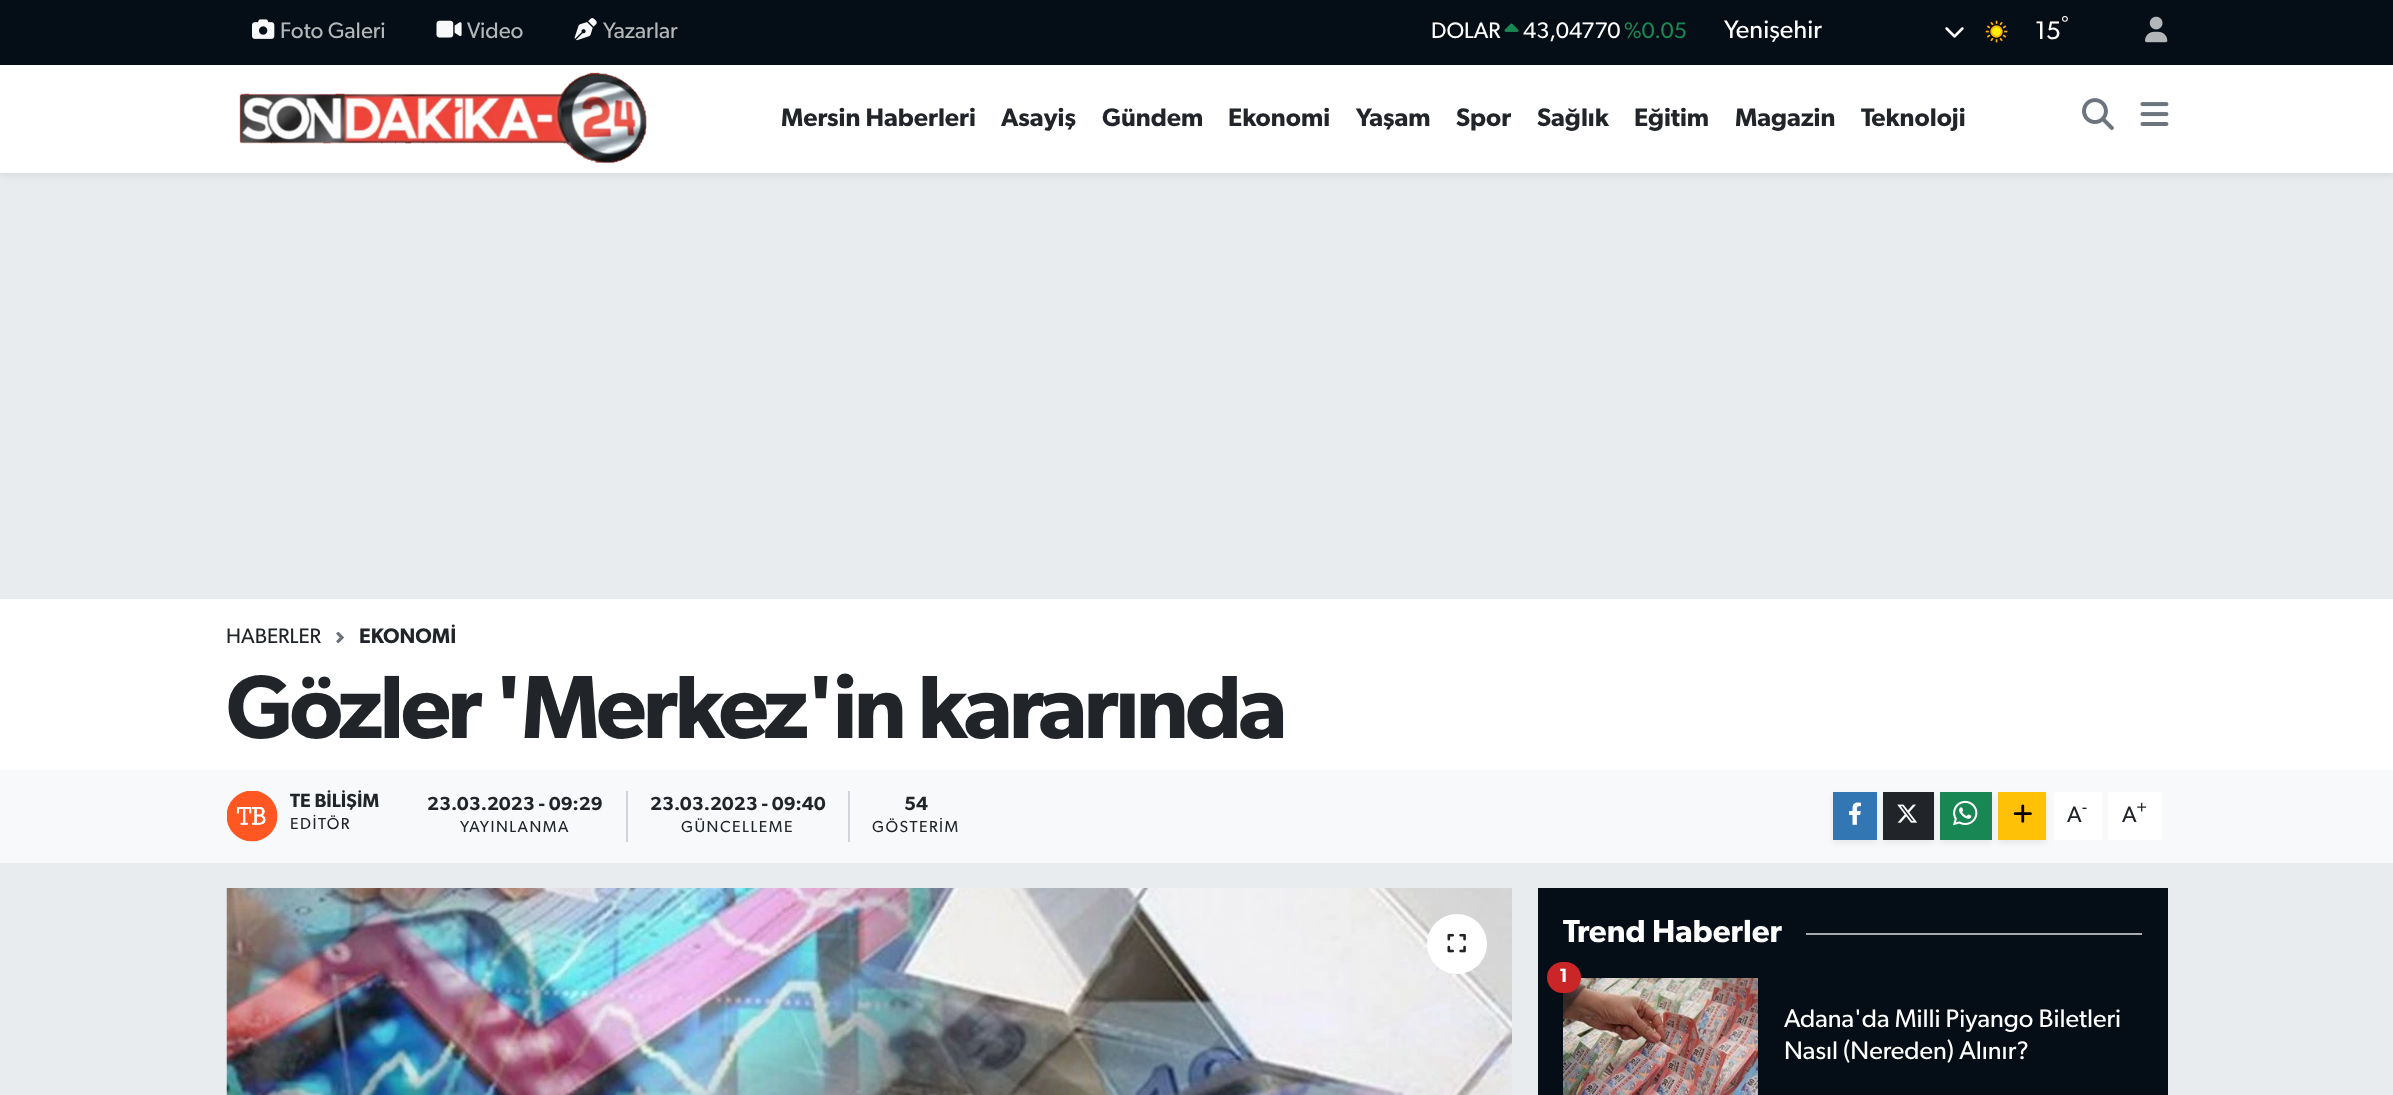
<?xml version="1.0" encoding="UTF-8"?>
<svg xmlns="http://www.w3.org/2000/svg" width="2393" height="1095">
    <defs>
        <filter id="blur1" x="-50%" y="-200%" width="200%" height="500%"><feGaussianBlur stdDeviation="3"/></filter>
    </defs>
    <rect width="100%" height="100%" fill="#E9ECEF"/>
    <rect x="0" y="0" width="2393" height="65" fill="#050E17"/>
    <image x="252" y="19" width="23" height="20" href="img_01.png"/>
    <text x="280" y="38" font-family="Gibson" font-size="22.5" fill="#B4B7B9">Foto Galeri</text>
    <image x="436" y="20" width="26" height="18" href="img_02.png"/>
    <text x="467" y="38" font-family="Gibson" font-size="22.5" fill="#B4B7B9">Video</text>
    <image x="574" y="18" width="23" height="23" href="img_03.png"/>
    <text x="603" y="38" font-family="Gibson" font-size="22.5" fill="#B4B7B9">Yazarlar</text>
    <text x="1431" y="38" font-family="Gibson" font-size="22.5" fill="#FFFFFF">DOLAR</text>
    <image x="1504" y="23" width="15" height="9" href="img_04.png"/>
    <text x="1523" y="38" font-family="Gibson" font-size="22.5" fill="#FFFFFF">43,04770</text>
    <text x="1624" y="38" font-family="Gibson" font-size="22.5" fill="#198754">%0.05</text>
    <text x="1724" y="38" font-family="Gibson" font-size="25.5" fill="#FFFFFF">Yenişehir</text>
    <image x="1945" y="27" width="19" height="11" href="img_05.png"/>
    <text x="2061" y="30" font-family="Gibson" font-size="19.1" fill="#FFFFFF">°</text>
    <image x="1985" y="20" width="23" height="23" href="img_06.png"/>
    <text x="2035" y="39" font-family="Gibson" font-size="25.5" fill="#FFFFFF">15</text>
    <image x="2145" y="16" width="23" height="27" href="img_07.png"/>
    <rect x="0" y="68" width="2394" height="108" fill="#000000" fill-opacity="0.07" filter="url(#blur1)"/>
    <rect x="0" y="65" width="2393" height="108" fill="#FFFFFF"/>
    <image x="239" y="72" width="408" height="92" href="img_08.png"/>
    <text x="781" y="126" font-family="Gibson" font-size="25.5" font-weight="600" fill="#212529">Mersin Haberleri</text>
    <text x="1001" y="126" font-family="Gibson" font-size="25.5" font-weight="600" fill="#212529">Asayiş</text>
    <text x="1102" y="126" font-family="Gibson" font-size="25.5" font-weight="600" fill="#212529">Gündem</text>
    <text x="1228" y="126" font-family="Gibson" font-size="25.5" font-weight="600" fill="#212529">Ekonomi</text>
    <text x="1356" y="126" font-family="Gibson" font-size="25.5" font-weight="600" fill="#212529">Yaşam</text>
    <text x="1456" y="126" font-family="Gibson" font-size="25.5" font-weight="600" fill="#212529">Spor</text>
    <text x="1537" y="126" font-family="Gibson" font-size="25.5" font-weight="600" fill="#212529">Sağlık</text>
    <text x="1634" y="126" font-family="Gibson" font-size="25.5" font-weight="600" fill="#212529">Eğitim</text>
    <text x="1735" y="126" font-family="Gibson" font-size="25.5" font-weight="600" fill="#212529">Magazin</text>
    <text x="1861" y="126" font-family="Gibson" font-size="25.5" font-weight="600" fill="#212529">Teknoloji</text>
    <image x="2082" y="98" width="32" height="32" href="img_09.png"/>
    <image x="2140" y="102" width="29" height="24" href="img_10.png"/>
    <rect x="0" y="599" width="2393" height="171" fill="#FFFFFF"/>
    <text x="226" y="643" font-family="Gibson" font-size="21" fill="#212529">HABERLER</text>
    <image x="336" y="632" width="9" height="12" href="img_11.png"/>
    <text x="359" y="643" font-family="Gibson" font-size="21" font-weight="600" fill="#212529">EKONOMİ</text>
    <text x="226" y="738" font-family="Gibson" font-size="90" font-weight="600" letter-spacing="-3.45" fill="#212529">Gözler 'Merkez'in kararında</text>
    <rect x="0" y="770" width="2393" height="93" fill="#F8F9FA"/>
    <image x="227" y="791" width="51" height="51" href="img_12.png"/>
    <text x="290" y="807" font-family="Gibson" font-size="19.1" font-weight="600" fill="#212529">TE BİLİŞİM</text>
    <text x="290" y="829" font-family="Gibson" font-size="16" letter-spacing="1.5" fill="#212529">EDİTÖR</text>
    <rect x="626" y="791" width="2" height="51" fill="#CED4DA"/>
    <text x="427" y="810" font-family="Gibson" font-size="19.1" font-weight="600" fill="#212529">23.03.2023 - 09:29</text>
    <text x="460" y="832" font-family="Gibson" font-size="16" letter-spacing="1.5" fill="#212529">YAYINLANMA</text>
    <rect x="848" y="791" width="2" height="51" fill="#CED4DA"/>
    <text x="650" y="810" font-family="Gibson" font-size="19.1" font-weight="600" fill="#212529">23.03.2023 - 09:40</text>
    <text x="681" y="832" font-family="Gibson" font-size="16" letter-spacing="1.5" fill="#212529">GÜNCELLEME</text>
    <text x="904" y="810" font-family="Gibson" font-size="19.1" font-weight="600" fill="#212529">54</text>
    <text x="872" y="832" font-family="Gibson" font-size="16" letter-spacing="1.5" fill="#212529">GÖSTERİM</text>
    <rect x="1833" y="795" width="44" height="48" fill="#000000" fill-opacity="0.07" filter="url(#blur1)"/>
    <rect x="1833" y="792" width="44" height="48" fill="#3276B3"/>
    <image x="1849" y="802" width="12" height="23" href="img_13.png"/>
    <rect x="1883" y="795" width="51" height="48" fill="#000000" fill-opacity="0.07" filter="url(#blur1)"/>
    <rect x="1883" y="792" width="51" height="48" fill="#212529"/>
    <image x="1897" y="804" width="21" height="19" href="img_14.png"/>
    <rect x="1940" y="795" width="52" height="48" fill="#000000" fill-opacity="0.07" filter="url(#blur1)"/>
    <rect x="1940" y="792" width="52" height="48" fill="#198754"/>
    <image x="1953" y="800" width="25" height="26" href="img_15.png"/>
    <rect x="2054" y="792" width="48" height="48" fill="#FFFFFF"/>
    <rect x="1998" y="795" width="48" height="48" fill="#000000" fill-opacity="0.07" filter="url(#blur1)"/>
    <rect x="1998" y="792" width="48" height="48" fill="#FFC107"/>
    <image x="2013" y="804" width="19" height="19" href="img_16.png"/>
    <text x="2067" y="822" font-family="Gibson" font-size="22.5" fill="#212529">A</text>
    <text x="2082" y="813" font-family="Gibson" font-size="17" fill="#212529">-</text>
    <rect x="2108" y="792" width="54" height="48" fill="#FFFFFF"/>
    <text x="2122" y="822" font-family="Gibson" font-size="22.5" fill="#212529">A</text>
    <text x="2136" y="813" font-family="Gibson" font-size="17" fill="#212529">+</text>
    <image x="226" y="888" width="1286" height="207" href="img_17.png"/>
    <circle cx="1457" cy="944" r="30" fill="#FFFFFF"/>
    <image x="1447" y="933" width="19" height="20" href="img_18.png"/>
    <rect x="1538" y="888" width="630" height="207" fill="#050E17"/>
    <text x="1563" y="942" font-family="Gibson" font-size="32" font-weight="600" fill="#FFFFFF">Trend Haberler</text>
    <rect x="1806" y="933" width="336" height="2" fill="#A9ACAE"/>
    <image x="1563" y="978" width="195" height="117" href="img_19.png"/>
    <rect x="1547" y="962" width="34" height="31" rx="15.5" fill="#CA2527"/>
    <text x="1559" y="982" font-family="Gibson" font-size="19.1" font-weight="600" fill="#FFFFFF">1</text>
    <text font-family="Gibson" font-size="25.5" fill="#FFFFFF">
        <tspan x="1784" y="1027">Adana'da Milli Piyango Biletleri</tspan>
        <tspan x="1784" y="1059">Nasıl (Nereden) Alınır?</tspan>
    </text>
</svg>
